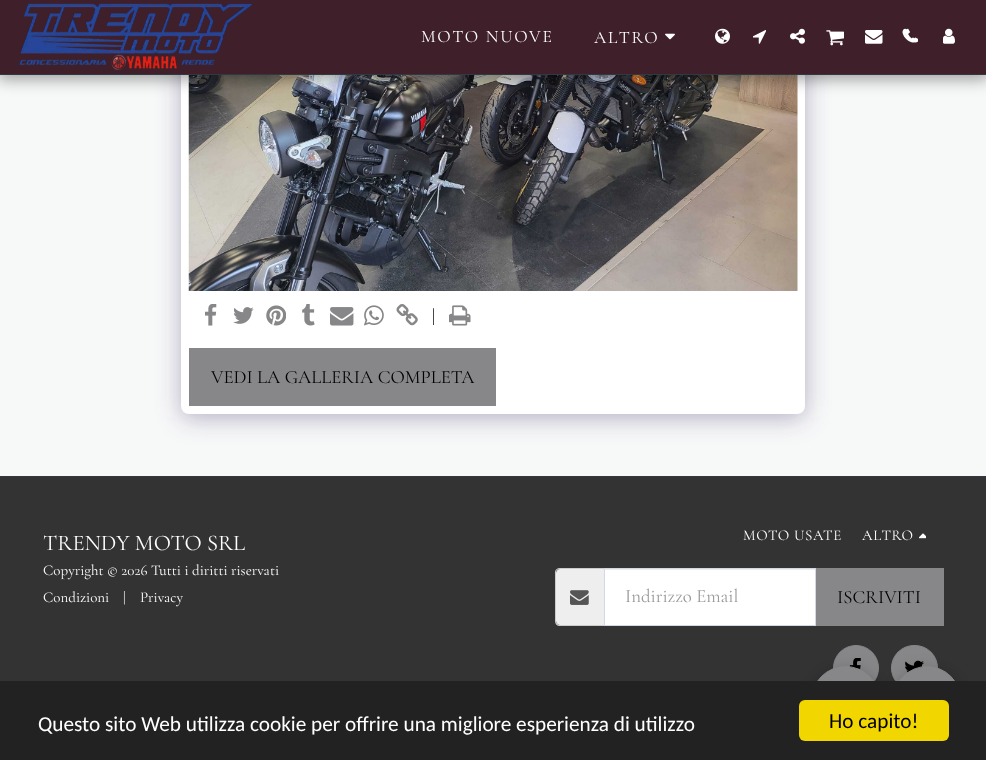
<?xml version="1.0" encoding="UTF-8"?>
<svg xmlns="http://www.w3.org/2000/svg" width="986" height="760">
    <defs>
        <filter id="blur1" x="-50%" y="-200%" width="200%" height="500%"><feGaussianBlur stdDeviation="12.5"/></filter>
        <filter id="blur2" x="-50%" y="-200%" width="200%" height="500%"><feGaussianBlur stdDeviation="7.5"/></filter>
        <filter id="blur3" x="-50%" y="-200%" width="200%" height="500%"><feGaussianBlur stdDeviation="9.5"/></filter>
    </defs>
    <rect width="100%" height="100%" fill="#F7F9F8"/>
    <rect x="181" y="-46" width="624" height="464" rx="8" fill="#4D3F7A" fill-opacity="0.4" filter="url(#blur1)"/>
    <rect x="181" y="-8" width="624" height="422" rx="8" fill="#FFFFFF"/>
    <image x="188" y="75" width="610" height="216" href="img_11.png"/>
    <rect x="-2" y="0" width="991" height="80" fill="#000000" fill-opacity="0.35" filter="url(#blur2)"/>
    <rect x="0" y="0" width="986" height="74" fill="#3F202A"/>
    <rect x="0" y="74" width="986" height="1" fill="#303841"/>
    <image x="19" y="3" width="234" height="67" href="img_01.png"/>
    <text x="421" y="42" font-family="Cormorant Garamond" font-size="17.5" letter-spacing="1.75" fill="#FFFFFF">MOTO NUOVE</text>
    <text x="594" y="43" font-family="Cormorant Garamond" font-size="17.5" letter-spacing="1.75" fill="#FFFFFF">ALTRO</text>
    <image x="665" y="33" width="10" height="7" href="img_02.png"/>
    <image x="715" y="28" width="15" height="16" href="img_03.png"/>
    <image x="753" y="30" width="13" height="14" href="img_04.png"/>
    <image x="790" y="28" width="15" height="16" href="img_05.png"/>
    <image x="826" y="30" width="18" height="16" href="img_06.png"/>
    <image x="865" y="30" width="18" height="14" href="img_07.png"/>
    <image x="905" y="28" width="13" height="15" href="img_08.png"/>
    <image x="902" y="28" width="13" height="15" href="img_09.png"/>
    <image x="943" y="28" width="12" height="16" href="img_10.png"/>
    <image x="205" y="304" width="12" height="22" href="img_12.png"/>
    <image x="233" y="307" width="21" height="17" href="img_13.png"/>
    <image x="266" y="305" width="20" height="21" href="img_14.png"/>
    <image x="302" y="304" width="13" height="22" href="img_15.png"/>
    <image x="330" y="307" width="24" height="19" href="img_16.png"/>
    <image x="364" y="305" width="20" height="21" href="img_17.png"/>
    <image x="396" y="304" width="22" height="22" href="img_18.png"/>
    <text x="432" y="322" font-family="Cormorant Garamond" font-size="18.75" fill="#000000">|</text>
    <image x="449" y="305" width="22" height="21" href="img_19.png"/>
    <rect x="189" y="348" width="307" height="58" fill="#878789"/>
    <text x="211" y="383" font-family="Cormorant Garamond" font-size="18.75" fill="#000000">VEDI LA GALLERIA COMPLETA</text>
    <rect x="0" y="477" width="986" height="204" fill="#333333"/>
    <rect x="0" y="476" width="986" height="1" fill="#303841"/>
    <text x="43" y="550" font-family="Cormorant Garamond" font-size="22.5" fill="#FFFFFF">TRENDY MOTO SRL</text>
    <text font-family="Cormorant Garamond" font-size="15" fill="#FFFFFF">
        <tspan x="43" y="575">Copyright © 2026 Tutti i diritti riservati</tspan>
        <tspan x="43" y="602">Condizioni</tspan>
    </text>
    <text x="123" y="602" font-family="Cormorant Garamond" font-size="15" fill="#FFFFFF">|</text>
    <text x="140" y="602" font-family="Cormorant Garamond" font-size="15" fill="#FFFFFF">Privacy</text>
    <text x="743" y="540" font-family="Cormorant Garamond" font-size="15" letter-spacing="0.6" fill="#FFFFFF">MOTO USATE</text>
    <text x="862" y="540" font-family="Cormorant Garamond" font-size="15" letter-spacing="0.6" fill="#FFFFFF">ALTRO</text>
    <image x="919" y="533" width="7" height="6" href="img_20.png"/>
    <path d="M 560 569 H 604 V 625 H 560 C 558 625 556 623 556 621 V 573 C 556 571 558 569 560 569 Z" fill="#EEEEEE"/>
    <path d="M 560 568 H 604 V 626 H 560 C 557 626 555 624 555 621 V 572 C 555 570 557 568 560 568 Z M 560 569 H 604 V 625 H 560 C 558 625 556 623 556 621 V 572 C 556 570 558 569 560 569 Z" fill="#CCCCCC" fill-rule="evenodd"/>
    <image x="570" y="590" width="19" height="15" href="img_21.png"/>
    <rect x="605" y="570" width="210" height="55" fill="#FFFFFF"/>
    <rect x="605" y="569" width="210" height="1" fill="#ECECEC"/>
    <rect x="604.5" y="568.5" width="211" height="57" fill="none" stroke="#D4D7E5"/>
    <text x="625" y="602" font-family="Cormorant Garamond" font-size="18.75" fill="#999999">Indirizzo Email</text>
    <rect x="816" y="568" width="128" height="58" fill="#878789"/>
    <text x="837" y="603" font-family="Cormorant Garamond" font-size="18.75" fill="#000000">ISCRIVITI</text>
    <circle cx="856" cy="668" r="22.5" fill="#878789" stroke="#878789"/>
    <image x="849" y="658" width="12" height="11" href="img_22.png"/>
    <rect x="891.5" y="645.5" width="46" height="45" rx="22.5" fill="#878789" stroke="#878789"/>
    <image x="905" y="660" width="19" height="13" href="img_23.png"/>
    <rect x="893" y="673" width="68" height="68" rx="34" fill="#000000" fill-opacity="0.35" filter="url(#blur3)"/>
    <rect x="893.5" y="666.5" width="67" height="68" rx="33.5" fill="#878789" stroke="#878789"/>
    <rect x="811" y="673" width="69" height="68" rx="34" fill="#000000" fill-opacity="0.35" filter="url(#blur3)"/>
    <circle cx="845.5" cy="700.5" r="34" fill="#878789" stroke="#878789"/>
    <rect x="0" y="681" width="986" height="79" fill="#222222"/>
    <text x="38" y="731" font-family="Carlito" font-size="21.25" fill="#FFFFFF">Questo sito Web utilizza cookie per offrire una migliore esperienza di utilizzo</text>
    <rect x="799" y="700" width="150" height="41" rx="6" fill="#F1D600"/>
    <text x="829" y="728" font-family="Carlito" font-size="21.25" fill="#000000">Ho capito!</text>
</svg>
